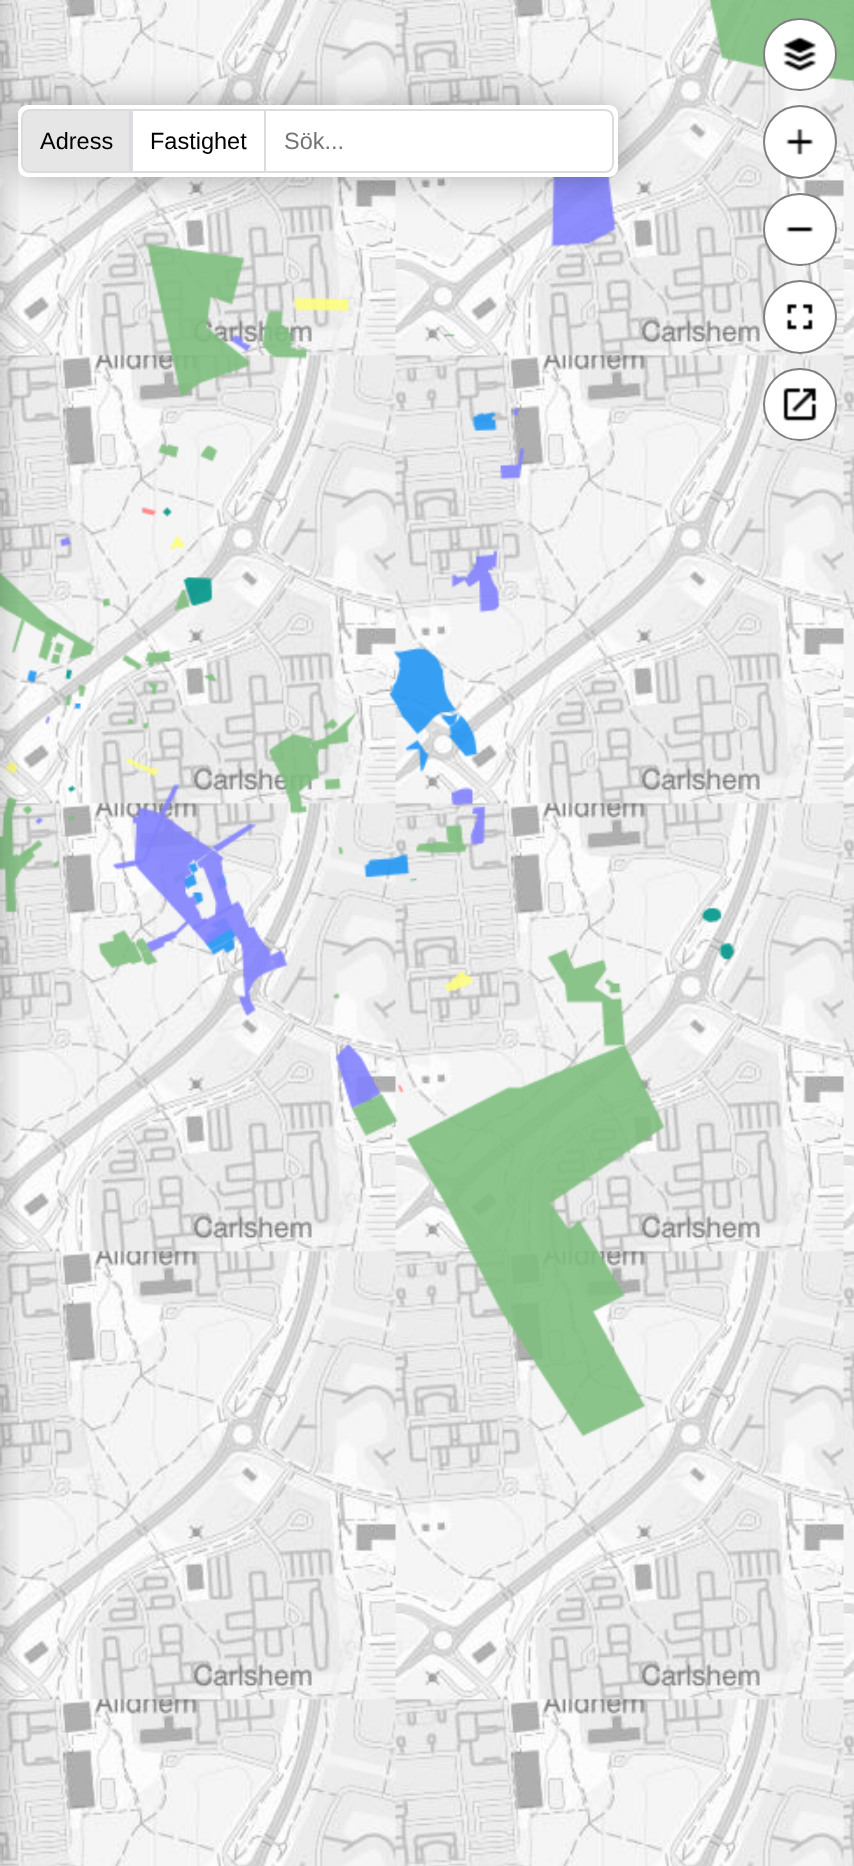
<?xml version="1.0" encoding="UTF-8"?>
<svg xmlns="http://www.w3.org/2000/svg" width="854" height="1866">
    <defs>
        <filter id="blur1" x="-50%" y="-200%" width="200%" height="500%"><feGaussianBlur stdDeviation="17.5"/></filter>
    </defs>
    <rect width="100%" height="100%" fill="#FFFFFF"/>
    <image x="0" y="0" width="854" height="1866" href="img_01.png"/>
    <rect x="18" y="105" width="600" height="72" rx="9" fill="#000000" fill-opacity="0.3" filter="url(#blur1)"/>
    <rect x="18" y="105" width="600" height="72" rx="9" fill="#FFFFFF"/>
    <path d="M 30 110 H 130 V 172 H 30 C 25.5 172 22 168.5 22 164 V 118 C 22 113.5 25.5 110 30 110 Z" fill="#E6E6E6" stroke="#DADCE0" stroke-width="2"/>
    <rect x="-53" y="-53" width="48" height="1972" fill="#000000" fill-opacity="0.3" filter="url(#blur1)"/>
    <rect x="764" y="19" width="72" height="71" rx="35.5" fill="#FFFFFF" stroke="#808080" stroke-width="2"/>
    <image x="783" y="36" width="34" height="36" href="img_02.png"/>
    <text x="40" y="149" font-family="Liberation Sans" font-size="23.5" fill="#000000">Adress</text>
    <rect x="132" y="110" width="133" height="62" fill="none" stroke="#DADCE0" stroke-width="2"/>
    <text x="150" y="149" font-family="Liberation Sans" font-size="23.5" fill="#000000">Fastighet</text>
    <path d="M 265 110 H 605 C 609.5 110 613 113.5 613 118 V 164 C 613 168.5 609.5 172 605 172 H 265 Z" fill="#FFFFFF" stroke="#DADCE0" stroke-width="2"/>
    <text x="284" y="149" font-family="Liberation Sans" font-size="23.5" fill="#757575">Sök...</text>
    <circle cx="800" cy="142" r="36" fill="#FFFFFF" stroke="#808080" stroke-width="2"/>
    <image x="785" y="128" width="29" height="28" href="img_03.png"/>
    <rect x="764" y="194" width="72" height="71" rx="35.5" fill="#FFFFFF" stroke="#808080" stroke-width="2"/>
    <image x="785" y="226" width="29" height="7" href="img_04.png"/>
    <circle cx="800" cy="317" r="36" fill="#FFFFFF" stroke="#808080" stroke-width="2"/>
    <image x="786" y="303" width="27" height="28" href="img_05.png"/>
    <rect x="764" y="369" width="72" height="71" rx="35.5" fill="#FFFFFF" stroke="#808080" stroke-width="2"/>
    <image x="783" y="387" width="34" height="35" href="img_06.png"/>
</svg>
